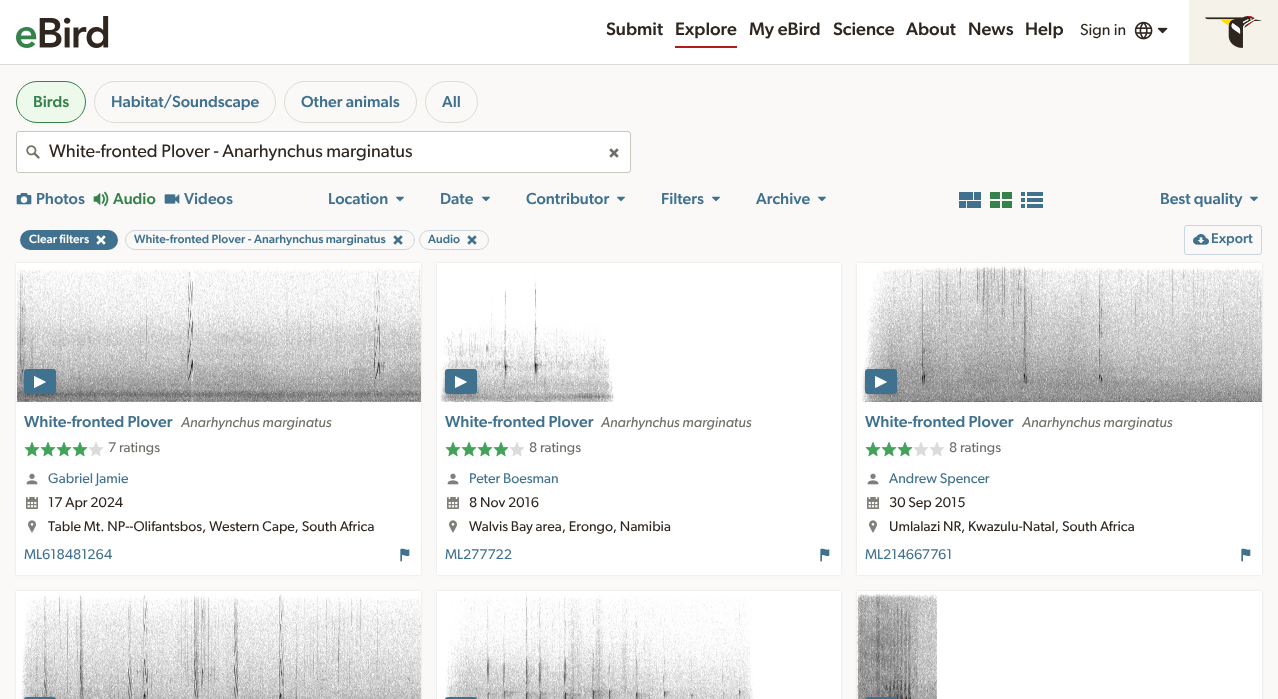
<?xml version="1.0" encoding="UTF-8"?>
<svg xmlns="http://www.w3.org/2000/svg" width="1278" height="699">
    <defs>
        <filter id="blur1" x="-50%" y="-200%" width="200%" height="500%"><feGaussianBlur stdDeviation="1"/></filter>
        <filter id="blur2" x="-50%" y="-200%" width="200%" height="500%"><feGaussianBlur stdDeviation="2"/></filter>
    </defs>
    <rect width="100%" height="100%" fill="#FFFFFF"/>
    <rect x="0" y="64" width="1278" height="1" fill="#DBDBD9"/>
    <image x="16" y="16" width="93" height="32" href="img_01.png"/>
    <text x="606" y="35" font-family="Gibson" font-size="18.1" font-weight="500" fill="#2E261F">Submit</text>
    <rect x="675" y="46" width="62" height="2" fill="#B31B1B"/>
    <text x="675" y="35" font-family="Gibson" font-size="18.1" font-weight="500" fill="#2E261F">Explore</text>
    <text x="749" y="35" font-family="Gibson" font-size="18.1" font-weight="500" fill="#2E261F">My eBird</text>
    <text x="833" y="35" font-family="Gibson" font-size="18.1" font-weight="500" fill="#2E261F">Science</text>
    <text x="906" y="35" font-family="Gibson" font-size="18.1" font-weight="500" fill="#2E261F">About</text>
    <text x="968" y="35" font-family="Gibson" font-size="18.1" font-weight="500" fill="#2E261F">News</text>
    <text x="1025" y="35" font-family="Gibson" font-size="18.1" font-weight="500" fill="#2E261F">Help</text>
    <text x="1080" y="35" font-family="Gibson" font-size="16" fill="#2E261F">Sign in</text>
    <image x="1134" y="21" width="19" height="19" href="img_02.png"/>
    <image x="1157" y="27" width="11" height="7" href="img_03.png"/>
    <rect x="1189" y="0" width="89" height="64" fill="#F5F3E9"/>
    <image x="1205" y="16" width="57" height="32" href="img_04.png"/>
    <rect x="0" y="65" width="1278" height="634" fill="#FAF9F7"/>
    <rect x="16.5" y="81.5" width="69" height="41" rx="20.5" fill="#ECF9EB" stroke="#36824B"/>
    <text x="33" y="107" font-family="Gibson" font-size="16" font-weight="500" fill="#36824B">Birds</text>
    <rect x="94.5" y="81.5" width="181" height="41" rx="20.5" fill="none" stroke="#DDDCD5"/>
    <text x="111" y="107" font-family="Gibson" font-size="16" font-weight="500" fill="#40718F">Habitat/Soundscape</text>
    <rect x="284.5" y="81.5" width="132" height="41" rx="20.5" fill="none" stroke="#DDDCD5"/>
    <text x="301" y="107" font-family="Gibson" font-size="16" font-weight="500" fill="#40718F">Other animals</text>
    <rect x="425.5" y="81.5" width="52" height="41" rx="20.5" fill="none" stroke="#DDDCD5"/>
    <text x="442" y="107" font-family="Gibson" font-size="16" font-weight="500" fill="#40718F">All</text>
    <rect x="16.5" y="131.5" width="614" height="41" rx="2.5" fill="#FFFFFF" stroke="#C8C7C0"/>
    <image x="26" y="145" width="14" height="14" href="img_05.png"/>
    <text x="49" y="157" font-family="Gibson" font-size="18.1" fill="#2E261F">White-fronted Plover - Anarhynchus marginatus</text>
    <image x="609" y="148" width="10" height="10" href="img_06.png"/>
    <image x="16" y="193" width="16" height="12" href="img_07.png"/>
    <text x="36" y="204" font-family="Gibson" font-size="16" font-weight="500" fill="#40718F">Photos</text>
    <image x="93" y="191" width="16" height="16" href="img_08.png"/>
    <text x="113" y="204" font-family="Gibson" font-size="16" font-weight="500" fill="#36824B">Audio</text>
    <image x="164" y="194" width="16" height="10" href="img_09.png"/>
    <text x="184" y="204" font-family="Gibson" font-size="16" font-weight="500" fill="#40718F">Videos</text>
    <text x="328" y="204" font-family="Gibson" font-size="16" font-weight="500" fill="#40718F">Location</text>
    <image x="396" y="196" width="8" height="6" href="img_10.png"/>
    <text x="440" y="204" font-family="Gibson" font-size="16" font-weight="500" fill="#40718F">Date</text>
    <image x="482" y="196" width="8" height="6" href="img_10.png"/>
    <text x="526" y="204" font-family="Gibson" font-size="16" font-weight="500" fill="#40718F">Contributor</text>
    <image x="617" y="196" width="8" height="6" href="img_10.png"/>
    <text x="661" y="204" font-family="Gibson" font-size="16" font-weight="500" fill="#40718F">Filters</text>
    <image x="712" y="196" width="8" height="6" href="img_10.png"/>
    <text x="756" y="204" font-family="Gibson" font-size="16" font-weight="500" fill="#40718F">Archive</text>
    <image x="818" y="196" width="8" height="6" href="img_10.png"/>
    <image x="959" y="192" width="22" height="16" href="img_11.png"/>
    <image x="990" y="192" width="22" height="16" href="img_12.png"/>
    <image x="1021" y="192" width="22" height="16" href="img_13.png"/>
    <text x="1160" y="204" font-family="Gibson" font-size="16" font-weight="500" fill="#40718F">Best quality</text>
    <image x="1250" y="196" width="8" height="6" href="img_10.png"/>
    <rect x="20" y="230" width="98" height="20" rx="10" fill="#40718F"/>
    <text x="29" y="243" font-family="Gibson" font-size="12" font-weight="500" fill="#FFFFFF">Clear filters</text>
    <image x="96" y="235" width="10" height="10" href="img_14.png"/>
    <rect x="125.5" y="230.5" width="289" height="19" rx="9.5" fill="none" stroke="#CCD7DD"/>
    <text x="134" y="243" font-family="Gibson" font-size="12" font-weight="500" fill="#40718F">White-fronted Plover - Anarhynchus marginatus</text>
    <image x="393" y="235" width="10" height="10" href="img_15.png"/>
    <rect x="419.5" y="230.5" width="69" height="19" rx="9.5" fill="none" stroke="#CCD7DD"/>
    <text x="428" y="243" font-family="Gibson" font-size="12" font-weight="500" fill="#40718F">Audio</text>
    <image x="467" y="235" width="10" height="10" href="img_15.png"/>
    <rect x="1184.5" y="225.5" width="77" height="29" rx="2.5" fill="none" stroke="#CCD7DD"/>
    <image x="1193" y="234" width="16" height="11" href="img_16.png"/>
    <text x="1211" y="243" font-family="Gibson" font-size="14.1" font-weight="500" fill="#40718F">Export</text>
    <rect x="16" y="263" width="405" height="312" fill="#000000" fill-opacity="0.1" filter="url(#blur1)"/>
    <image x="16" y="263" width="405" height="139" href="img_17.png"/>
    <rect x="16" y="402" width="405" height="173" fill="#FFFFFF"/>
    <rect x="24" y="371" width="32" height="25" rx="3" fill="#000000" fill-opacity="0.2" filter="url(#blur2)"/>
    <rect x="24" y="369" width="32" height="25" rx="3" fill="#40718F"/>
    <image x="34" y="376" width="12" height="12" href="img_18.png"/>
    <text x="24" y="427" font-family="Gibson" font-size="16" font-weight="500" fill="#40718F">White-fronted Plover</text>
    <text x="181" y="427" font-family="Gibson" font-size="14.4" font-style="italic" fill="#6F6E67">Anarhynchus marginatus</text>
    <image x="24" y="441" width="16" height="16" href="img_19.png"/>
    <image x="40" y="441" width="16" height="16" href="img_19.png"/>
    <image x="56" y="441" width="16" height="16" href="img_19.png"/>
    <image x="72" y="441" width="16" height="16" href="img_19.png"/>
    <image x="88" y="442" width="16" height="15" href="img_20.png"/>
    <text x="108" y="452" font-family="Gibson" font-size="14.1" fill="#6F6E67">7 ratings</text>
    <image x="26" y="473" width="12" height="12" href="img_21.png"/>
    <text x="48" y="483" font-family="Gibson" font-size="14.1" fill="#40718F">Gabriel Jamie</text>
    <image x="26" y="497" width="12" height="12" href="img_22.png"/>
    <text x="48" y="507" font-family="Gibson" font-size="14.1" fill="#2E261F">17 Apr 2024</text>
    <image x="28" y="520" width="8" height="13" href="img_23.png"/>
    <text x="48" y="531" font-family="Gibson" font-size="14.1" fill="#2E261F">Table Mt. NP--Olifantsbos, Western Cape, South Africa</text>
    <text x="24" y="559" font-family="Gibson" font-size="14.1" fill="#40718F">ML618481264</text>
    <image x="400" y="548" width="10" height="14" href="img_24.png"/>
    <rect x="437" y="263" width="404" height="312" fill="#000000" fill-opacity="0.1" filter="url(#blur1)"/>
    <image x="437" y="263" width="404" height="139" href="img_25.png"/>
    <rect x="437" y="402" width="404" height="173" fill="#FFFFFF"/>
    <rect x="445" y="371" width="32" height="25" rx="3" fill="#000000" fill-opacity="0.2" filter="url(#blur2)"/>
    <rect x="445" y="369" width="32" height="25" rx="3" fill="#40718F"/>
    <image x="455" y="376" width="12" height="12" href="img_18.png"/>
    <text x="445" y="427" font-family="Gibson" font-size="16" font-weight="500" fill="#40718F">White-fronted Plover</text>
    <text x="601" y="427" font-family="Gibson" font-size="14.4" font-style="italic" fill="#6F6E67">Anarhynchus marginatus</text>
    <image x="445" y="441" width="16" height="16" href="img_19.png"/>
    <image x="461" y="441" width="16" height="16" href="img_19.png"/>
    <image x="477" y="441" width="16" height="16" href="img_19.png"/>
    <image x="493" y="441" width="16" height="16" href="img_19.png"/>
    <image x="509" y="442" width="16" height="15" href="img_20.png"/>
    <text x="529" y="452" font-family="Gibson" font-size="14.1" fill="#6F6E67">8 ratings</text>
    <image x="447" y="473" width="12" height="12" href="img_21.png"/>
    <text x="469" y="483" font-family="Gibson" font-size="14.1" fill="#40718F">Peter Boesman</text>
    <image x="447" y="497" width="12" height="12" href="img_22.png"/>
    <text x="469" y="507" font-family="Gibson" font-size="14.1" fill="#2E261F">8 Nov 2016</text>
    <image x="449" y="520" width="8" height="13" href="img_23.png"/>
    <text x="469" y="531" font-family="Gibson" font-size="14.1" fill="#2E261F">Walvis Bay area, Erongo, Namibia</text>
    <text x="445" y="559" font-family="Gibson" font-size="14.1" fill="#40718F">ML277722</text>
    <image x="820" y="548" width="10" height="14" href="img_24.png"/>
    <rect x="857" y="263" width="405" height="312" fill="#000000" fill-opacity="0.1" filter="url(#blur1)"/>
    <image x="857" y="263" width="405" height="139" href="img_26.png"/>
    <rect x="857" y="402" width="405" height="173" fill="#FFFFFF"/>
    <rect x="865" y="371" width="32" height="25" rx="3" fill="#000000" fill-opacity="0.2" filter="url(#blur2)"/>
    <rect x="865" y="369" width="32" height="25" rx="3" fill="#40718F"/>
    <image x="875" y="376" width="12" height="12" href="img_18.png"/>
    <text x="865" y="427" font-family="Gibson" font-size="16" font-weight="500" fill="#40718F">White-fronted Plover</text>
    <text x="1022" y="427" font-family="Gibson" font-size="14.4" font-style="italic" fill="#6F6E67">Anarhynchus marginatus</text>
    <image x="865" y="441" width="16" height="16" href="img_19.png"/>
    <image x="881" y="441" width="16" height="16" href="img_19.png"/>
    <image x="897" y="441" width="16" height="16" href="img_19.png"/>
    <image x="913" y="442" width="16" height="15" href="img_20.png"/>
    <image x="929" y="442" width="16" height="15" href="img_20.png"/>
    <text x="949" y="452" font-family="Gibson" font-size="14.1" fill="#6F6E67">8 ratings</text>
    <image x="867" y="473" width="12" height="12" href="img_21.png"/>
    <text x="889" y="483" font-family="Gibson" font-size="14.1" fill="#40718F">Andrew Spencer</text>
    <image x="867" y="497" width="12" height="12" href="img_22.png"/>
    <text x="889" y="507" font-family="Gibson" font-size="14.1" fill="#2E261F">30 Sep 2015</text>
    <image x="869" y="520" width="8" height="13" href="img_23.png"/>
    <text x="889" y="531" font-family="Gibson" font-size="14.1" fill="#2E261F">Umlalazi NR, Kwazulu-Natal, South Africa</text>
    <text x="865" y="559" font-family="Gibson" font-size="14.1" fill="#40718F">ML214667761</text>
    <image x="1241" y="548" width="10" height="14" href="img_24.png"/>
    <rect x="16" y="591" width="405" height="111" fill="#000000" fill-opacity="0.1" filter="url(#blur1)"/>
    <image x="16" y="591" width="405" height="108" href="img_27.png"/>
    <rect x="24" y="699" width="32" height="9" rx="3" fill="#000000" fill-opacity="0.2" filter="url(#blur2)"/>
    <rect x="24" y="697" width="32" height="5" rx="3" fill="#40718F"/>
    <rect x="437" y="591" width="404" height="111" fill="#000000" fill-opacity="0.1" filter="url(#blur1)"/>
    <image x="437" y="591" width="404" height="108" href="img_28.png"/>
    <rect x="445" y="699" width="32" height="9" rx="3" fill="#000000" fill-opacity="0.2" filter="url(#blur2)"/>
    <rect x="445" y="697" width="32" height="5" rx="3" fill="#40718F"/>
    <rect x="857" y="591" width="405" height="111" fill="#000000" fill-opacity="0.1" filter="url(#blur1)"/>
    <image x="857" y="591" width="405" height="108" href="img_29.png"/>
    <rect x="865" y="699" width="32" height="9" rx="3" fill="#000000" fill-opacity="0.2" filter="url(#blur2)"/>
    <rect x="865" y="697" width="32" height="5" rx="3" fill="#40718F"/>
</svg>
